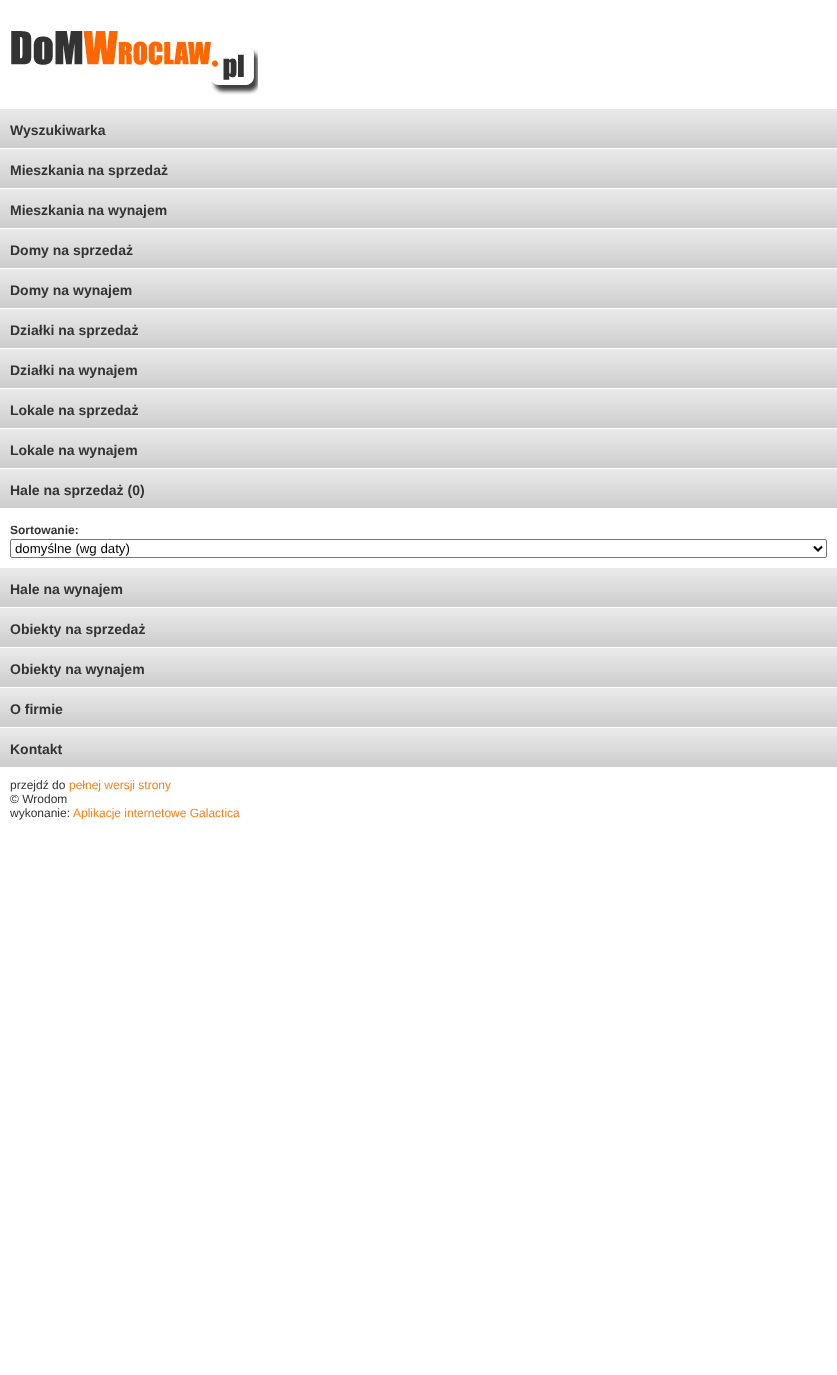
<?xml version="1.0" encoding="UTF-8"?>
<svg xmlns="http://www.w3.org/2000/svg" width="837" height="1375">
    <rect width="100%" height="100%" fill="#FFFFFF"/>
    <image x="11" y="31" width="247" height="64" href="img_01.png"/>
    <image x="0" y="109" width="837" height="39" href="img_02.png"/>
    <text x="10" y="135" font-family="Liberation Sans" font-size="14" font-weight="700" fill="#333333">Wyszukiwarka</text>
    <image x="0" y="149" width="837" height="39" href="img_02.png"/>
    <text x="10" y="175" font-family="Liberation Sans" font-size="14" font-weight="700" fill="#333333">Mieszkania na sprzedaż</text>
    <image x="0" y="189" width="837" height="39" href="img_02.png"/>
    <text x="10" y="215" font-family="Liberation Sans" font-size="14" font-weight="700" fill="#333333">Mieszkania na wynajem</text>
    <image x="0" y="229" width="837" height="39" href="img_02.png"/>
    <text x="10" y="255" font-family="Liberation Sans" font-size="14" font-weight="700" fill="#333333">Domy na sprzedaż</text>
    <image x="0" y="269" width="837" height="39" href="img_02.png"/>
    <text x="10" y="295" font-family="Liberation Sans" font-size="14" font-weight="700" fill="#333333">Domy na wynajem</text>
    <image x="0" y="309" width="837" height="39" href="img_02.png"/>
    <text x="10" y="335" font-family="Liberation Sans" font-size="14" font-weight="700" fill="#333333">Działki na sprzedaż</text>
    <image x="0" y="349" width="837" height="39" href="img_02.png"/>
    <text x="10" y="375" font-family="Liberation Sans" font-size="14" font-weight="700" fill="#333333">Działki na wynajem</text>
    <image x="0" y="389" width="837" height="39" href="img_02.png"/>
    <text x="10" y="415" font-family="Liberation Sans" font-size="14" font-weight="700" fill="#333333">Lokale na sprzedaż</text>
    <image x="0" y="429" width="837" height="39" href="img_02.png"/>
    <text x="10" y="455" font-family="Liberation Sans" font-size="14" font-weight="700" fill="#333333">Lokale na wynajem</text>
    <image x="0" y="469" width="837" height="39" href="img_02.png"/>
    <text x="10" y="495" font-family="Liberation Sans" font-size="14" font-weight="700" fill="#333333">Hale na sprzedaż (0)</text>
    <text x="10" y="534" font-family="Liberation Sans" font-size="12" font-weight="700" fill="#333333">Sortowanie:</text>
    <rect x="10.5" y="539.5" width="816" height="18" rx="1.5" fill="none" stroke="#767676"/>
    <path d="M 814 546.5 L 818 550.5 L 822 546.5" fill="none" stroke="#000000" stroke-width="2"/>
    <text x="15" y="553" font-family="Liberation Sans" font-size="13.25" fill="#000000">domyślne (wg daty)</text>
    <image x="0" y="568" width="837" height="39" href="img_02.png"/>
    <text x="10" y="594" font-family="Liberation Sans" font-size="14" font-weight="700" fill="#333333">Hale na wynajem</text>
    <image x="0" y="608" width="837" height="39" href="img_02.png"/>
    <text x="10" y="634" font-family="Liberation Sans" font-size="14" font-weight="700" fill="#333333">Obiekty na sprzedaż</text>
    <image x="0" y="648" width="837" height="39" href="img_02.png"/>
    <text x="10" y="674" font-family="Liberation Sans" font-size="14" font-weight="700" fill="#333333">Obiekty na wynajem</text>
    <image x="0" y="688" width="837" height="39" href="img_02.png"/>
    <text x="10" y="714" font-family="Liberation Sans" font-size="14" font-weight="700" fill="#333333">O firmie</text>
    <image x="0" y="728" width="837" height="39" href="img_02.png"/>
    <text x="10" y="754" font-family="Liberation Sans" font-size="14" font-weight="700" fill="#333333">Kontakt</text>
    <text x="10" y="789" font-family="Liberation Sans" font-size="12" fill="#333333">przejdź do</text>
    <text x="69" y="789" font-family="Liberation Sans" font-size="12" fill="#FF7C12">pełnej wersji strony</text>
    <text font-family="Liberation Sans" font-size="12" fill="#333333">
        <tspan x="10" y="803">© Wrodom</tspan>
        <tspan x="10" y="817">wykonanie:</tspan>
    </text>
    <text x="73" y="817" font-family="Liberation Sans" font-size="12" fill="#FF7C12">Aplikacje internetowe Galactica</text>
</svg>
